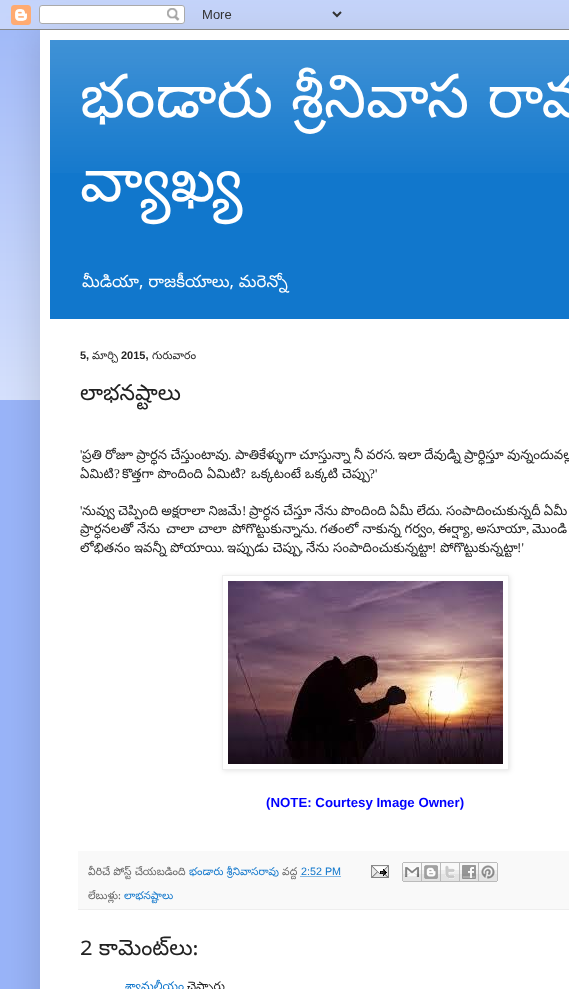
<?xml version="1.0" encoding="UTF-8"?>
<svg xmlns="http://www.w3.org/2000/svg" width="569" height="989">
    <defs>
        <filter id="blur1" x="-50%" y="-200%" width="200%" height="500%"><feGaussianBlur stdDeviation="20"/></filter>
        <clipPath id="clip1"><path d="M 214 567 H 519 V 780 H 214 Z M 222 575 H 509 V 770 H 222 Z" clip-rule="evenodd"/></clipPath>
        <filter id="blur2" x="-50%" y="-200%" width="200%" height="500%"><feGaussianBlur stdDeviation="2.5"/></filter>
    </defs>
    <rect width="100%" height="100%" fill="#99B4F9"/>
    <image x="0" y="0" width="569" height="400" href="img_01.png"/>
    <rect x="40" y="30" width="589" height="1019" fill="#000000" fill-opacity="0.15" filter="url(#blur1)"/>
    <image x="0" y="0" width="569" height="30" href="img_02.png"/>
    <rect x="40" y="30" width="529" height="959" fill="#FFFFFF"/>
    <rect x="50" y="40" width="519" height="279" fill="#1177CC"/>
    <image x="50" y="40" width="519" height="133" href="img_03.png"/>
    <text font-family="Noto Sans Telugu" font-size="60" fill="#FFFFFF">
        <tspan x="80" y="117" word-spacing="1">భండారు శ్రీనివాస రావ</tspan>
        <tspan x="80" y="201">వ్యాఖ్య</tspan>
    </text>
    <text x="82" y="287" font-family="Noto Sans Telugu" font-size="16.75" fill="#FFFFFF">మీడియా, రాజకీయాలు, మరెన్నో</text>
    <text x="80" y="359" font-family="Liberation Sans" font-size="11" font-weight="700" fill="#222222">5,</text>
    <text x="92" y="359" font-family="Noto Sans Telugu" font-size="11" fill="#222222">మార్చి</text>
    <text x="121" y="359" font-family="Liberation Sans" font-size="11" font-weight="700" fill="#222222">2015,</text>
    <text x="152" y="359" font-family="Noto Sans Telugu" font-size="11" fill="#222222">గురువారం</text>
    <text x="80" y="400" font-family="Noto Sans Telugu" font-size="22" fill="#222222">లాభనష్టాలు</text>
    <text x="80" y="459" font-family="Liberation Serif" font-size="13.25" fill="#222222">'</text>
    <text x="82" y="459" word-spacing="-0.5" font-family="Noto Sans Telugu" font-size="13.25" fill="#222222">ప్రతి రోజూ ప్రార్ధన చేస్తుంటావు</text>
    <text x="235" y="459" word-spacing="-0.5" font-family="Noto Sans Telugu" font-size="13.25" fill="#222222">పాతికేళ్ళుగా చూస్తున్నా నీ వరస</text>
    <text x="398" y="459" word-spacing="-0.5" font-family="Noto Sans Telugu" font-size="13.25" fill="#222222">ఇలా దేవుడ్ని ప్రార్ధిస్తూ వున్నందువల్ల</text>
    <text x="228" y="459" font-family="Liberation Serif" font-size="13.25" fill="#222222">.</text>
    <text x="392" y="459" font-family="Liberation Serif" font-size="13.25" fill="#222222">.</text>
    <text x="80" y="478" font-family="Noto Sans Telugu" font-size="13.25" fill="#222222">ఏమిటి</text>
    <text x="114" y="478" font-family="Liberation Serif" font-size="13.25" fill="#222222">?</text>
    <text x="122" y="478" font-family="Noto Sans Telugu" font-size="13.25" fill="#222222">కొత్తగా పొందింది ఏమిటి</text>
    <text x="240" y="478" font-family="Liberation Serif" font-size="13.25" fill="#222222">?</text>
    <text x="251" y="478" font-family="Noto Sans Telugu" font-size="13.25" fill="#222222">ఒక్కటంటే ఒక్కటి చెప్పు</text>
    <text x="369" y="478" font-family="Liberation Serif" font-size="13.25" fill="#222222">?'</text>
    <text x="80" y="515" font-family="Liberation Serif" font-size="13.25" fill="#222222">'</text>
    <text x="82" y="515" word-spacing="-0.5" font-family="Noto Sans Telugu" font-size="13.25" fill="#222222">నువ్వు చెప్పింది అక్షరాలా నిజమే</text>
    <text x="242" y="515" font-family="Liberation Serif" font-size="13.25" fill="#222222">!</text>
    <text x="249" y="515" word-spacing="-0.5" font-family="Noto Sans Telugu" font-size="13.25" fill="#222222">ప్రార్ధన చేస్తూ నేను పొందింది ఏమీ లేదు</text>
    <text x="446" y="515" word-spacing="-0.5" font-family="Noto Sans Telugu" font-size="13.25" fill="#222222">సంపాదించుకున్నదీ ఏమీ</text>
    <text x="439" y="515" font-family="Liberation Serif" font-size="13.25" fill="#222222">.</text>
    <text x="80" y="533" font-family="Noto Sans Telugu" font-size="13.25" fill="#222222">ప్రార్ధనలతో నేను</text>
    <text x="166" y="533" font-family="Noto Sans Telugu" font-size="13.25" fill="#222222">చాలా చాలా</text>
    <text x="232" y="533" font-family="Noto Sans Telugu" font-size="13.25" fill="#222222">పోగొట్టుకున్నాను</text>
    <text x="314" y="533" font-family="Liberation Serif" font-size="13.25" fill="#222222">.</text>
    <text x="320" y="533" font-family="Noto Sans Telugu" font-size="13.25" fill="#222222">గతంలో నాకున్న గర్వం</text>
    <text x="432" y="533" font-family="Liberation Serif" font-size="13.25" fill="#222222">,</text>
    <text x="438" y="533" font-family="Noto Sans Telugu" font-size="13.25" fill="#222222">ఈర్ష్యా</text>
    <text x="470" y="533" font-family="Liberation Serif" font-size="13.25" fill="#222222">,</text>
    <text x="476" y="533" font-family="Noto Sans Telugu" font-size="13.25" fill="#222222">అసూయా</text>
    <text x="526" y="533" font-family="Liberation Serif" font-size="13.25" fill="#222222">,</text>
    <text x="532" y="533" font-family="Noto Sans Telugu" font-size="13.25" fill="#222222">మొండి</text>
    <text x="80" y="552" font-family="Noto Sans Telugu" font-size="13.25" fill="#222222">లోభితనం ఇవన్నీ పోయాయి</text>
    <text x="221" y="552" font-family="Liberation Serif" font-size="13.25" fill="#222222">.</text>
    <text x="227" y="552" font-family="Noto Sans Telugu" font-size="13.25" fill="#222222">ఇప్పుడు చెప్పు</text>
    <text x="300" y="552" font-family="Liberation Serif" font-size="13.25" fill="#222222">,</text>
    <text x="306" y="552" font-family="Noto Sans Telugu" font-size="13.25" fill="#222222">నేను సంపాదించుకున్నట్టా</text>
    <text x="432" y="552" font-family="Liberation Serif" font-size="13.25" fill="#222222">!</text>
    <text x="440" y="552" font-family="Noto Sans Telugu" font-size="13.25" fill="#222222">పోగొట్టుకున్నట్టా</text>
    <text x="517" y="552" font-family="Liberation Serif" font-size="13.25" fill="#222222">!'</text>
    <g clip-path="url(#clip1)">
        <rect x="223" y="576" width="287" height="195" fill="#000000" fill-opacity="0.1" filter="url(#blur2)"/>
    </g>
    <rect x="222.5" y="575.5" width="286" height="194" fill="none" stroke="#EEEEEE"/>
    <image x="228" y="581" width="275" height="183" href="img_04.png"/>
    <text x="266" y="807" font-family="Liberation Sans" font-size="13.25" font-weight="700" fill="#0000FF">(NOTE: Courtesy Image Owner)</text>
    <rect x="78" y="851" width="491" height="58" fill="#F9F9F9"/>
    <rect x="78" y="909" width="491" height="1" fill="#EEEEEE"/>
    <text x="88" y="875" font-family="Noto Sans Telugu" font-size="10.75" fill="#666666">వీరిచే పోస్ట్ చేయబడింది</text>
    <text x="189" y="875" font-family="Noto Sans Telugu" font-size="10.75" fill="#1177CC">భండారు శ్రీనివాసరావు</text>
    <text x="282" y="875" font-family="Noto Sans Telugu" font-size="10.75" fill="#666666">వద్ద</text>
    <path d="M 300.5 876.5 H 341" fill="none" stroke="#1177CC" stroke-dasharray="1 1"/>
    <text x="301" y="875" font-family="Liberation Sans" font-size="10.75" fill="#1177CC">2:52 PM</text>
    <image x="371" y="865" width="18" height="13" href="img_05.png"/>
    <image x="402" y="862" width="20" height="20" href="img_06.png"/>
    <image x="422" y="862" width="19" height="20" href="img_07.png"/>
    <image x="441" y="862" width="19" height="20" href="img_08.png"/>
    <image x="460" y="862" width="19" height="20" href="img_09.png"/>
    <image x="479" y="862" width="19" height="20" href="img_10.png"/>
    <text x="88" y="899" font-family="Noto Sans Telugu" font-size="10.75" fill="#666666">లేబుళ్లు:</text>
    <text x="124" y="899" font-family="Noto Sans Telugu" font-size="10.75" fill="#1177CC">లాభనష్టాలు</text>
    <text x="80" y="955" font-family="Noto Sans Telugu" font-size="22" fill="#222222">2 కామెంట్‌లు:</text>
    <text x="125" y="990" font-family="Noto Sans Telugu" font-size="12" fill="#1177CC">శ్యామలీయం</text>
    <text x="187" y="990" font-family="Noto Sans Telugu" font-size="12" fill="#222222">చెప్పారు</text>
</svg>
